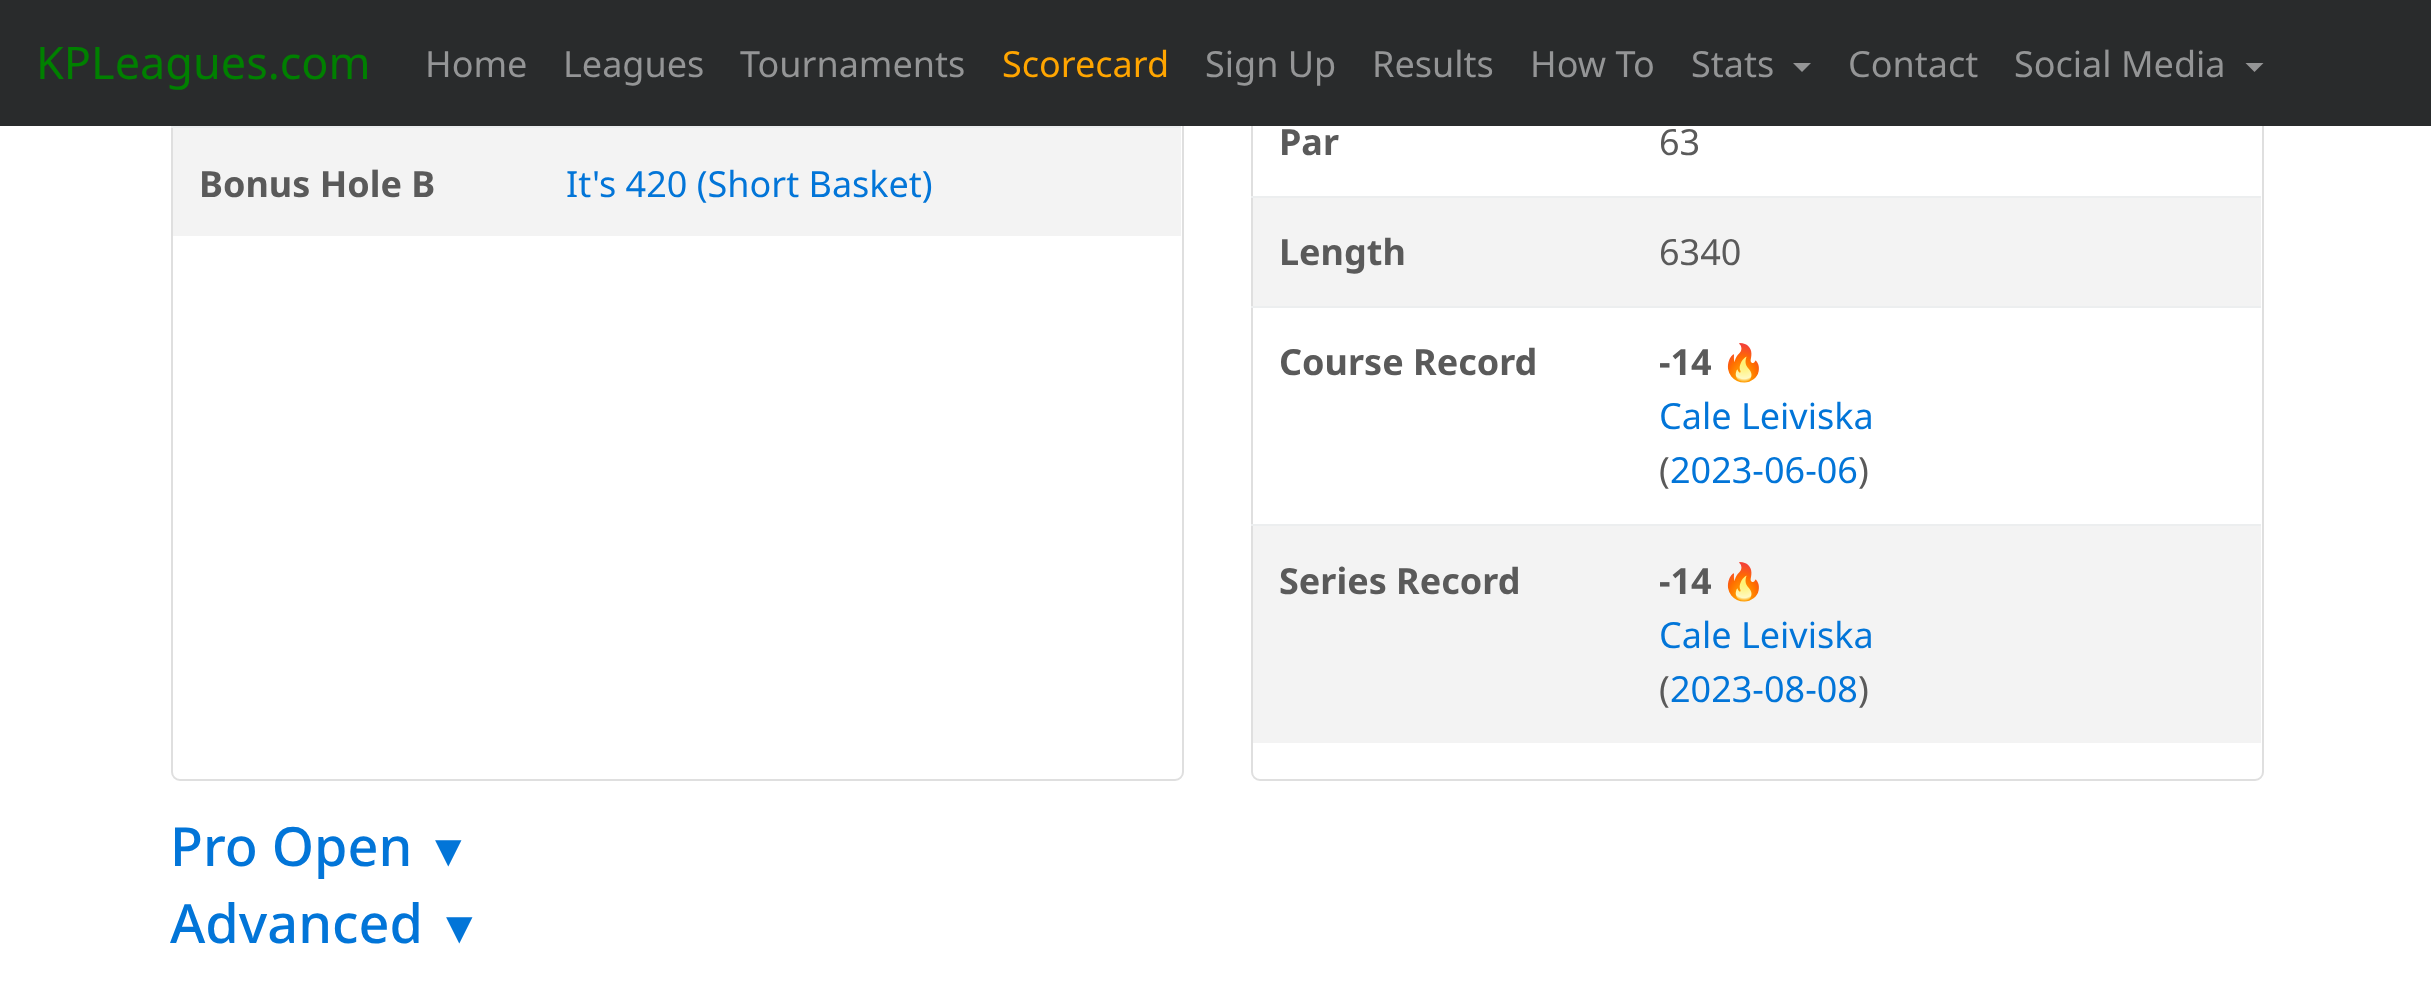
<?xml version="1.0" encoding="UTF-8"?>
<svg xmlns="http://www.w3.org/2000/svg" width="2431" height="989">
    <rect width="100%" height="100%" fill="#FFFFFF"/>
    <rect x="172" y="-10" width="1011" height="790" rx="8" fill="none" stroke="#DFDFDF" stroke-width="2"/>
    <rect x="1252" y="-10" width="1011" height="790" rx="8" fill="none" stroke="#DFDFDF" stroke-width="2"/>
    <rect x="0" y="0" width="2431" height="126" fill="#292B2C"/>
    <text x="36" y="79" font-family="Noto Sans" font-size="45" fill="#008000">KPLeagues.com</text>
    <text x="425" y="77" font-family="Noto Sans" font-size="36" fill="#949596">Home</text>
    <text x="563" y="77" font-family="Noto Sans" font-size="36" fill="#949596">Leagues</text>
    <text x="740" y="77" font-family="Noto Sans" font-size="36" fill="#949596">Tournaments</text>
    <text x="1002" y="77" font-family="Noto Sans" font-size="36" fill="#FFA500">Scorecard</text>
    <text x="1205" y="77" font-family="Noto Sans" font-size="36" fill="#949596">Sign Up</text>
    <text x="1372" y="77" font-family="Noto Sans" font-size="36" fill="#949596">Results</text>
    <text x="1530" y="77" font-family="Noto Sans" font-size="36" fill="#949596">How To</text>
    <text x="1691" y="77" font-family="Noto Sans" font-size="36" fill="#949596">Stats</text>
    <path d="M 1793 63 H 1811 L 1802 72 Z" fill="#949596"/>
    <text x="1848" y="77" font-family="Noto Sans" font-size="36" fill="#949596">Contact</text>
    <text x="2014" y="77" font-family="Noto Sans" font-size="36" fill="#949596">Social Media</text>
    <path d="M 2245.5 63 H 2263.5 L 2254.5 72 Z" fill="#949596"/>
    <rect x="173" y="128" width="1008" height="108" fill="#F3F3F3"/>
    <text x="199" y="197" font-family="Noto Sans" font-size="36" font-weight="700" fill="#5A5A5A">Bonus Hole B</text>
    <rect x="171" y="126" width="1010" height="2" fill="#ECEEEF"/>
    <text x="566" y="197" font-family="Noto Sans" font-size="36" fill="#0275D8">It's 420 (Short Basket)</text>
    <text x="1279" y="155" font-family="Noto Sans" font-size="36" font-weight="700" fill="#5A5A5A">Par</text>
    <text x="1659" y="155" font-family="Noto Sans" font-size="36" fill="#5A5A5A">63</text>
    <rect x="1253" y="198" width="1008" height="108" fill="#F3F3F3"/>
    <text x="1279" y="265" font-family="Noto Sans" font-size="36" font-weight="700" fill="#5A5A5A">Length</text>
    <rect x="1251" y="196" width="1010" height="2" fill="#ECEEEF"/>
    <text x="1659" y="265" font-family="Noto Sans" font-size="36" fill="#5A5A5A">6340</text>
    <text x="1279" y="375" font-family="Noto Sans" font-size="36" font-weight="700" fill="#5A5A5A">Course Record</text>
    <rect x="1251" y="306" width="1010" height="2" fill="#ECEEEF"/>
    <text x="1659" y="375" font-family="Noto Sans" font-size="36" font-weight="700" fill="#5A5A5A">-14</text>
    <text x="1721" y="375" font-family="Noto Color Emoji" font-size="36" font-weight="700" fill="#5A5A5A">🔥</text>
    <text x="1659" y="429" font-family="Noto Sans" font-size="36" fill="#0275D8">Cale Leiviska</text>
    <text x="1659" y="483" font-family="Noto Sans" font-size="36" fill="#5A5A5A">(</text>
    <text x="1670" y="483" font-family="Noto Sans" font-size="36" fill="#0275D8">2023-06-06</text>
    <text x="1858" y="483" font-family="Noto Sans" font-size="36" fill="#5A5A5A">)</text>
    <rect x="1253" y="526" width="1008" height="217" fill="#F3F3F3"/>
    <text x="1279" y="594" font-family="Noto Sans" font-size="36" font-weight="700" fill="#5A5A5A">Series Record</text>
    <rect x="1251" y="524" width="1010" height="2" fill="#ECEEEF"/>
    <text x="1659" y="594" font-family="Noto Sans" font-size="36" font-weight="700" fill="#5A5A5A">-14</text>
    <text x="1721" y="594" font-family="Noto Color Emoji" font-size="36" font-weight="700" fill="#5A5A5A">🔥</text>
    <text x="1659" y="648" font-family="Noto Sans" font-size="36" fill="#0275D8">Cale Leiviska</text>
    <text x="1659" y="702" font-family="Noto Sans" font-size="36" fill="#5A5A5A">(</text>
    <text x="1670" y="702" font-family="Noto Sans" font-size="36" fill="#0275D8">2023-08-08</text>
    <text x="1858" y="702" font-family="Noto Sans" font-size="36" fill="#5A5A5A">)</text>
    <text x="170" y="866" font-family="Noto Sans" font-size="54" font-weight="500" fill="#0275D8">Pro Open</text>
    <text x="426" y="866" font-family="Liberation Sans" font-size="45" fill="#0275D8">▼</text>
    <text x="170" y="943" font-family="Noto Sans" font-size="54" font-weight="500" fill="#0275D8">Advanced</text>
    <text x="437" y="943" font-family="Liberation Sans" font-size="45" fill="#0275D8">▼</text>
</svg>
